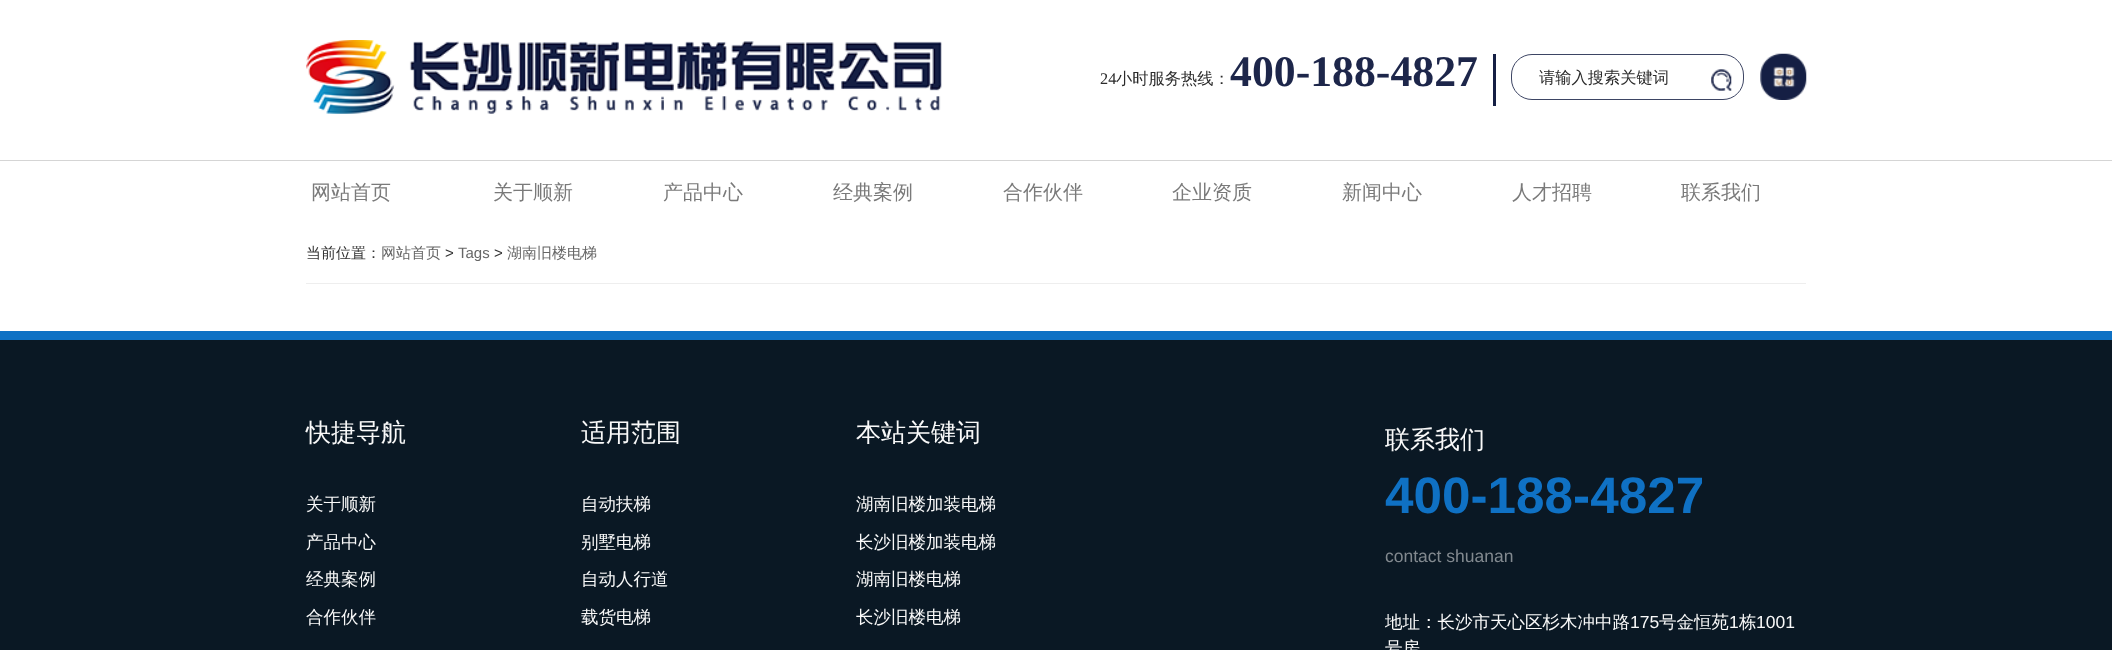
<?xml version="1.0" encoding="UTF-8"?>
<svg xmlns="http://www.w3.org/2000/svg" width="2112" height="650">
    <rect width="100%" height="100%" fill="#FFFFFF"/>
    <image x="306" y="40" width="636" height="74" href="img_01.png"/>
    <rect x="1493" y="54" width="3" height="52" fill="#151F44"/>
    <text x="1100" y="84" font-family="Liberation Serif" font-size="16.25" fill="#2B2B2B">24</text>
    <text x="1116" y="84" font-family="WenQuanYi Zen Hei" font-size="16.25" font-weight="500" fill="#2B2B2B">小时服务热线：</text>
    <text x="1230" y="86" font-family="Liberation Serif" font-size="43.75" font-weight="700" fill="#1D264A">400-188-4827</text>
    <rect x="1511.5" y="54.5" width="232" height="45" rx="20.5" fill="none" stroke="#3D4564"/>
    <text x="1539" y="83" font-family="WenQuanYi Zen Hei" font-size="16.25" font-weight="500" fill="#2B2B2B">请输入搜索关键词</text>
    <image x="1711" y="69" width="21" height="22" href="img_02.png"/>
    <image x="1760" y="53" width="47" height="47" href="img_03.png"/>
    <rect x="0" y="160" width="2112" height="1" fill="#D5D5D5"/>
    <text x="311" y="199" font-family="WenQuanYi Zen Hei" font-size="20" font-weight="500" fill="#7A7A7A">网站首页</text>
    <text x="493" y="199" font-family="WenQuanYi Zen Hei" font-size="20" font-weight="500" fill="#7A7A7A">关于顺新</text>
    <text x="663" y="199" font-family="WenQuanYi Zen Hei" font-size="20" font-weight="500" fill="#7A7A7A">产品中心</text>
    <text x="833" y="199" font-family="WenQuanYi Zen Hei" font-size="20" font-weight="500" fill="#7A7A7A">经典案例</text>
    <text x="1003" y="199" font-family="WenQuanYi Zen Hei" font-size="20" font-weight="500" fill="#7A7A7A">合作伙伴</text>
    <text x="1172" y="199" font-family="WenQuanYi Zen Hei" font-size="20" font-weight="500" fill="#7A7A7A">企业资质</text>
    <text x="1342" y="199" font-family="WenQuanYi Zen Hei" font-size="20" font-weight="500" fill="#7A7A7A">新闻中心</text>
    <text x="1512" y="199" font-family="WenQuanYi Zen Hei" font-size="20" font-weight="500" fill="#7A7A7A">人才招聘</text>
    <text x="1681" y="199" font-family="WenQuanYi Zen Hei" font-size="20" font-weight="500" fill="#7A7A7A">联系我们</text>
    <rect x="306" y="283" width="1500" height="1" fill="#EEEEEE"/>
    <text x="306" y="258" font-family="WenQuanYi Zen Hei" font-size="15" font-weight="500" fill="#333333">当前位置：</text>
    <text x="381" y="258" font-family="WenQuanYi Zen Hei" font-size="15" font-weight="500" fill="#666666">网站首页</text>
    <text x="445" y="258" font-family="Liberation Sans" font-size="15" fill="#333333">&gt;</text>
    <text x="458" y="258" font-family="Liberation Sans" font-size="15" fill="#666666">Tags</text>
    <text x="494" y="258" font-family="Liberation Sans" font-size="15" fill="#333333">&gt;</text>
    <text x="507" y="258" font-family="WenQuanYi Zen Hei" font-size="15" font-weight="500" fill="#666666">湖南旧楼电梯</text>
    <rect x="0" y="340" width="2112" height="310" fill="#0A1824"/>
    <rect x="0" y="331" width="2112" height="9" fill="#0F71C4"/>
    <text x="306" y="441" font-family="WenQuanYi Zen Hei" font-size="25" font-weight="500" fill="#F9F9F9">快捷导航</text>
    <text x="306" y="510" font-family="WenQuanYi Zen Hei" font-size="17.5" font-weight="500" fill="#F9F9F9">关于顺新</text>
    <text x="306" y="548" font-family="WenQuanYi Zen Hei" font-size="17.5" font-weight="500" fill="#F9F9F9">产品中心</text>
    <text x="306" y="585" font-family="WenQuanYi Zen Hei" font-size="17.5" font-weight="500" fill="#F9F9F9">经典案例</text>
    <text x="306" y="623" font-family="WenQuanYi Zen Hei" font-size="17.5" font-weight="500" fill="#F9F9F9">合作伙伴</text>
    <text x="581" y="441" font-family="WenQuanYi Zen Hei" font-size="25" font-weight="500" fill="#F9F9F9">适用范围</text>
    <text x="581" y="510" font-family="WenQuanYi Zen Hei" font-size="17.5" font-weight="500" fill="#F9F9F9">自动扶梯</text>
    <text x="581" y="548" font-family="WenQuanYi Zen Hei" font-size="17.5" font-weight="500" fill="#F9F9F9">别墅电梯</text>
    <text x="581" y="585" font-family="WenQuanYi Zen Hei" font-size="17.5" font-weight="500" fill="#F9F9F9">自动人行道</text>
    <text x="581" y="623" font-family="WenQuanYi Zen Hei" font-size="17.5" font-weight="500" fill="#F9F9F9">载货电梯</text>
    <text x="856" y="441" font-family="WenQuanYi Zen Hei" font-size="25" font-weight="500" fill="#F9F9F9">本站关键词</text>
    <text x="856" y="510" font-family="WenQuanYi Zen Hei" font-size="17.5" font-weight="500" fill="#F9F9F9">湖南旧楼加装电梯</text>
    <text x="856" y="548" font-family="WenQuanYi Zen Hei" font-size="17.5" font-weight="500" fill="#F9F9F9">长沙旧楼加装电梯</text>
    <text x="856" y="585" font-family="WenQuanYi Zen Hei" font-size="17.5" font-weight="500" fill="#F9F9F9">湖南旧楼电梯</text>
    <text x="856" y="623" font-family="WenQuanYi Zen Hei" font-size="17.5" font-weight="500" fill="#F9F9F9">长沙旧楼电梯</text>
    <text x="1385" y="448" font-family="WenQuanYi Zen Hei" font-size="25" font-weight="500" fill="#F9F9F9">联系我们</text>
    <text x="1385" y="513" font-family="Liberation Sans" font-size="51.25" font-weight="700" fill="#0F71C4">400-188-4827</text>
    <text x="1385" y="562" font-family="Liberation Sans" font-size="17.5" fill="#82898F">contact shuanan</text>
    <text x="1385" y="628" font-family="WenQuanYi Zen Hei" font-size="17.5" font-weight="500" fill="#F9F9F9">地址：长沙市天心区杉木冲中路</text>
    <text x="1630" y="628" font-family="Liberation Sans" font-size="17.5" fill="#F9F9F9">175</text>
    <text x="1659" y="628" font-family="WenQuanYi Zen Hei" font-size="17.5" font-weight="500" fill="#F9F9F9">号金恒苑</text>
    <text x="1729" y="628" font-family="Liberation Sans" font-size="17.5" fill="#F9F9F9">1</text>
    <text x="1739" y="628" font-family="WenQuanYi Zen Hei" font-size="17.5" font-weight="500" fill="#F9F9F9">栋</text>
    <text x="1756" y="628" font-family="Liberation Sans" font-size="17.5" fill="#F9F9F9">1001</text>
    <text x="1385" y="654" font-family="WenQuanYi Zen Hei" font-size="17.5" font-weight="500" fill="#F9F9F9">号房</text>
</svg>
